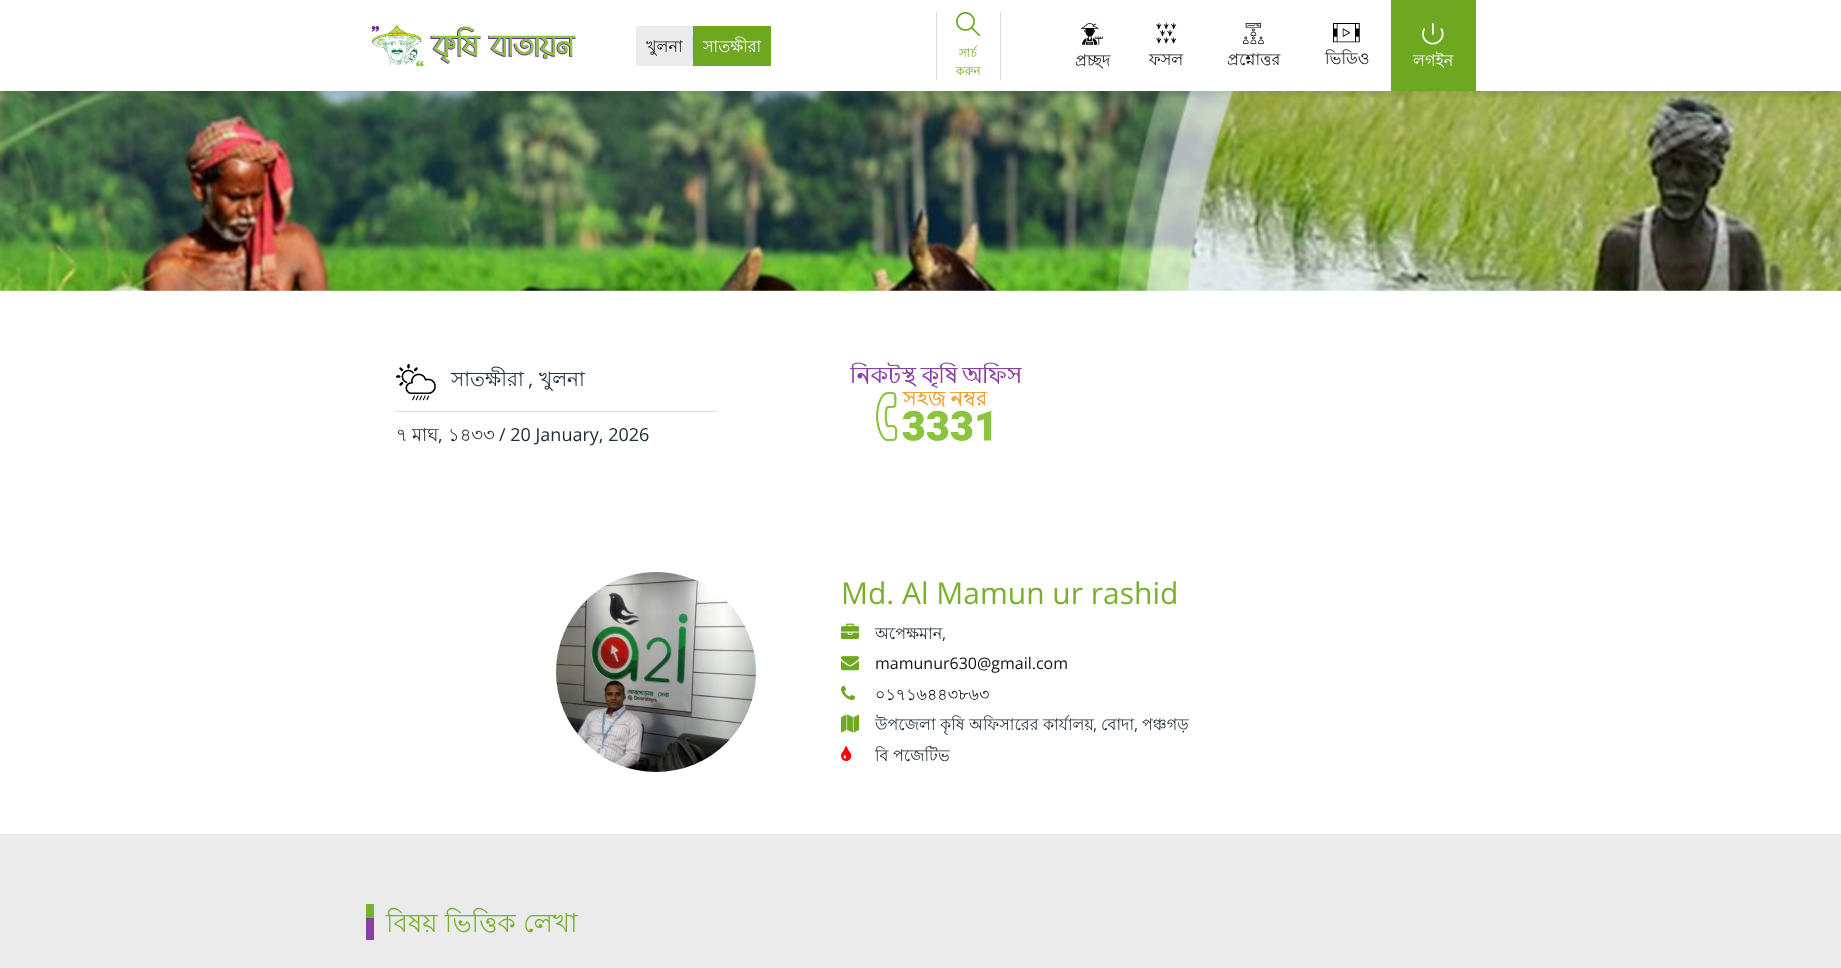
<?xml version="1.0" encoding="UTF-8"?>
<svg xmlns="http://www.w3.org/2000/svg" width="1841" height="968">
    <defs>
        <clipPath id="clip1"><rect x="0" y="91" width="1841" height="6"/></clipPath>
        <filter id="blur1" x="-50%" y="-200%" width="200%" height="500%"><feGaussianBlur stdDeviation="5"/></filter>
    </defs>
    <rect width="100%" height="100%" fill="#FFFFFF"/>
    <image x="0" y="91" width="1841" height="200" href="img_08.png"/>
    <g clip-path="url(#clip1)">
        <rect x="0" y="0" width="1841" height="91" fill="#000000" fill-opacity="0.15" filter="url(#blur1)"/>
    </g>
    <image x="371" y="25" width="205" height="42" href="img_01.png"/>
    <rect x="693" y="26" width="78" height="40" fill="#6DA820"/>
    <rect x="636" y="26" width="57" height="40" fill="#EBEBEB"/>
    <text x="646" y="52" font-family="Lohit Bengali" font-size="16" fill="#111111">খুলনা</text>
    <rect x="692" y="35" width="1" height="22" fill="#DBDADA"/>
    <text x="703" y="52" font-family="Lohit Bengali" font-size="16" fill="#FFFFFF">সাতক্ষীরা</text>
    <rect x="1000" y="12" width="1" height="68" fill="#DBDBDB"/>
    <rect x="936" y="12" width="1" height="68" fill="#DBDBDB"/>
    <image x="956" y="12" width="24" height="24" href="img_02.png"/>
    <text x="959" y="57" font-family="Lohit Bengali" font-size="12" fill="#6DA820">সার্চ</text>
    <text x="956" y="75" font-family="Lohit Bengali" font-size="12" fill="#6DA820">করুন</text>
    <image x="1081" y="23" width="22" height="22" href="img_03.png"/>
    <text x="1075" y="66" font-family="Lohit Bengali" font-size="16" fill="#111111">প্রচ্ছদ</text>
    <image x="1156" y="23" width="21" height="21" href="img_04.png"/>
    <text x="1149" y="65" font-family="Lohit Bengali" font-size="16" fill="#111111">ফসল</text>
    <image x="1243" y="23" width="21" height="21" href="img_05.png"/>
    <text x="1227" y="65" font-family="Lohit Bengali" font-size="16" fill="#111111">প্রশ্নোত্তর</text>
    <image x="1333" y="23" width="27" height="20" href="img_06.png"/>
    <text x="1325" y="64" font-family="Lohit Bengali" font-size="16" fill="#111111">ভিডিও</text>
    <rect x="1391" y="0" width="85" height="91" fill="#6DA820"/>
    <image x="1422" y="23" width="22" height="22" href="img_07.png"/>
    <text x="1413" y="66" font-family="Lohit Bengali" font-size="16" fill="#FFFFFF">লগইন</text>
    <rect x="396" y="411" width="320" height="1" fill="#DBDBDB"/>
    <image x="396" y="364" width="40" height="37" href="img_09.png"/>
    <text x="451" y="386" font-family="Lohit Bengali" font-size="20" fill="#233344">সাতক্ষীরা</text>
    <text x="528" y="386" font-family="Open Sans" font-size="20" fill="#233344">,</text>
    <text x="539" y="386" font-family="Lohit Bengali" font-size="20" fill="#233344">খুলনা</text>
    <text x="396" y="441" font-family="Lohit Bengali" font-size="18" fill="#202E39">৭</text>
    <text x="412" y="441" font-family="Lohit Bengali" font-size="18" fill="#202E39">মাঘ</text>
    <text x="438" y="441" font-family="Open Sans" font-size="18" fill="#202E39">,</text>
    <text x="448" y="441" font-family="Lohit Bengali" font-size="18" fill="#202E39">১৪৩৩</text>
    <text x="499" y="441" font-family="Open Sans" font-size="18" fill="#202E39">/ 20 January, 2026</text>
    <image x="849" y="362" width="173" height="79" href="img_10.png"/>
    <image x="556" y="572" width="200" height="200" href="img_11.png"/>
    <text x="841" y="604" font-family="Open Sans" font-size="30" fill="#78B22D">Md. Al Mamun ur rashid</text>
    <image x="841" y="623" width="18" height="16" href="img_12.png"/>
    <text x="875" y="639" font-family="Lohit Bengali" font-size="16" fill="#202E39">অপেক্ষমান</text>
    <text x="942" y="639" font-family="Open Sans" font-size="16" fill="#202E39">,</text>
    <image x="841" y="656" width="18" height="15" href="img_13.png"/>
    <text x="875" y="669" font-family="Open Sans" font-size="16" fill="#111111">mamunur630@gmail.com</text>
    <image x="841" y="685" width="15" height="15" href="img_14.png"/>
    <text x="875" y="700" font-family="Lohit Bengali" font-size="16" fill="#111111">০১৭১৬৪৪৩৮৬৩</text>
    <image x="841" y="714" width="18" height="19" href="img_15.png"/>
    <text x="875" y="730" font-family="Lohit Bengali" font-size="16" fill="#202E39">উপজেলা কৃষি অফিসারের কার্যালয়</text>
    <text x="1093" y="730" font-family="Open Sans" font-size="16" fill="#202E39">,</text>
    <text x="1101" y="730" font-family="Lohit Bengali" font-size="16" fill="#202E39">বোদা</text>
    <text x="1134" y="730" font-family="Open Sans" font-size="16" fill="#202E39">,</text>
    <text x="1142" y="730" font-family="Lohit Bengali" font-size="16" fill="#202E39">পঞ্চগড়</text>
    <image x="841" y="746" width="11" height="15" href="img_16.png"/>
    <text x="875" y="761" font-family="Lohit Bengali" font-size="16" fill="#202E39">বি পজেটিভ</text>
    <rect x="0" y="834" width="1841" height="134" fill="#EBEBEB"/>
    <rect x="366" y="904" width="8" height="22" fill="#78B22D"/>
    <text x="386" y="932" font-family="Lohit Bengali" font-size="26" fill="#78B22D">বিষয় ভিত্তিক লেখা</text>
    <rect x="366" y="918" width="8" height="22" fill="#873FA3"/>
</svg>
